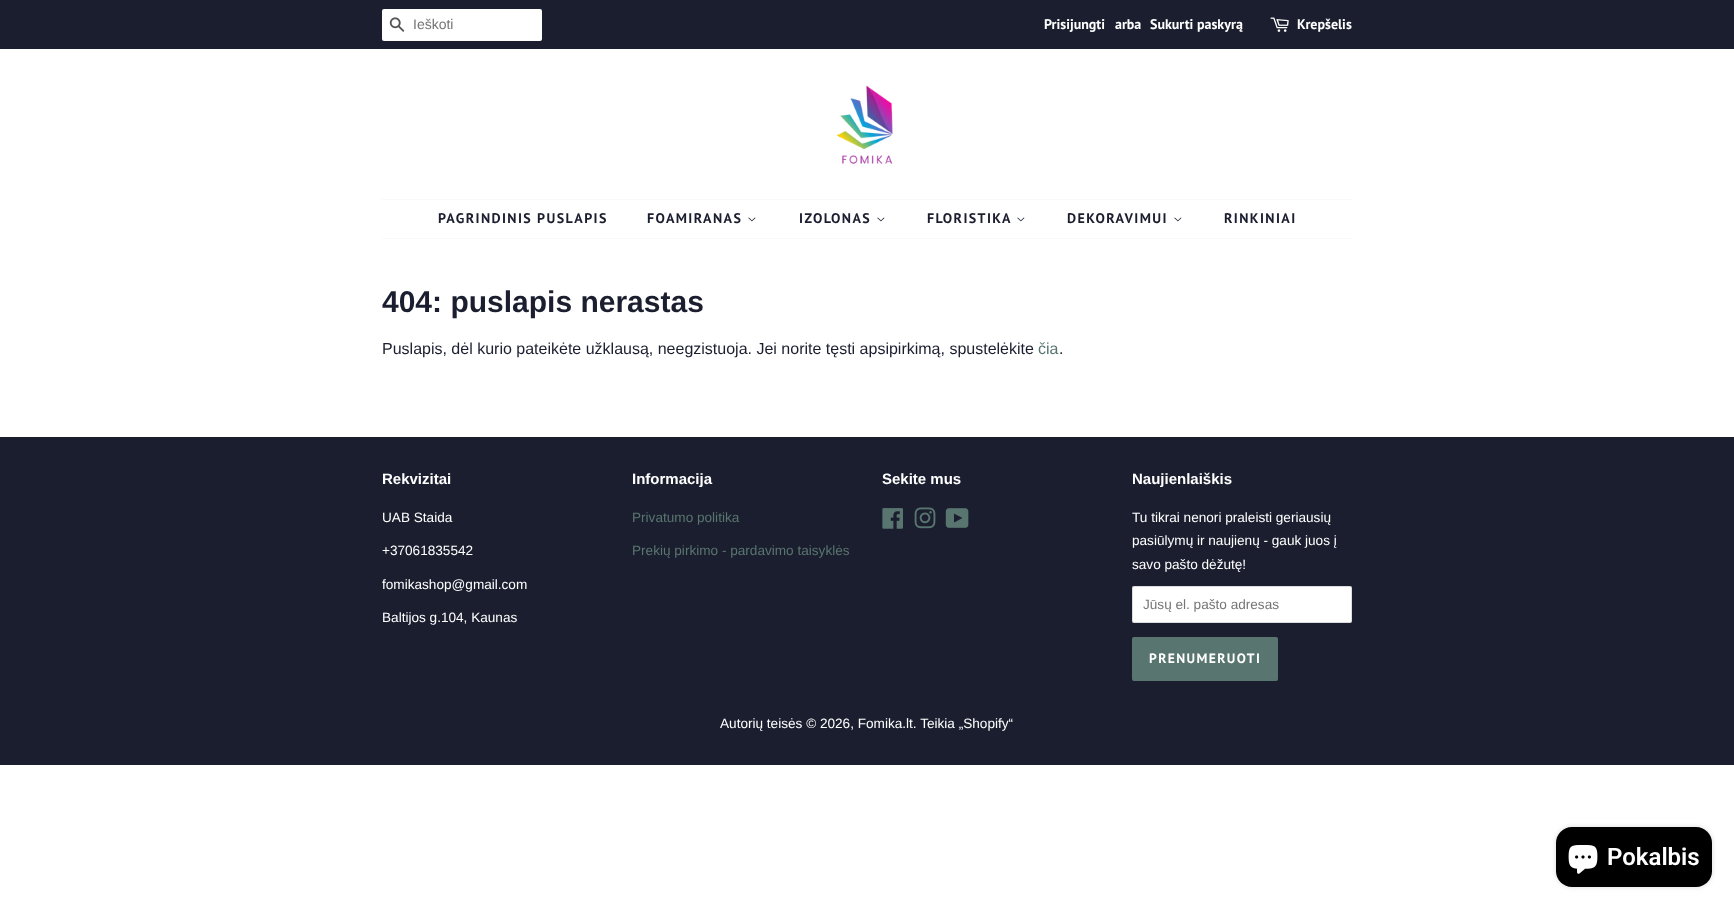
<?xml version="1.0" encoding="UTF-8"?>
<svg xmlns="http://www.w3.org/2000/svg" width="1734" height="908">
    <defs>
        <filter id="blur1" x="-50%" y="-200%" width="200%" height="500%"><feGaussianBlur stdDeviation="2.5"/></filter>
    </defs>
    <rect width="100%" height="100%" fill="#FFFFFF"/>
    <rect x="0" y="0" width="1734" height="49" fill="#1B1E2F"/>
    <rect x="382" y="9" width="160" height="32" rx="2" fill="#FFFFFF"/>
    <image x="389" y="17" width="16" height="15" href="img_01.png"/>
    <text x="413" y="29" font-family="Liberation Sans" font-size="14" fill="#757575">Ieškoti</text>
    <text x="1044" y="29" font-family="PT Sans" font-size="14" font-weight="700" fill="#FFFFFF">Prisijungti</text>
    <text x="1115" y="29" font-family="PT Sans" font-size="14" font-weight="700" fill="#FFFFFF">arba</text>
    <text x="1150" y="29" font-family="PT Sans" font-size="14" font-weight="700" fill="#FFFFFF">Sukurti paskyrą</text>
    <image x="1270" y="17" width="19" height="15" href="img_02.png"/>
    <text x="1297" y="29" font-family="PT Sans" font-size="14" font-weight="700" fill="#FFFFFF">Krepšelis</text>
    <image x="836" y="85" width="57" height="79" href="img_03.png"/>
    <rect x="382" y="199" width="970" height="1" fill="#FAF9F7"/>
    <rect x="382" y="238" width="970" height="1" fill="#FAF9F7"/>
    <text x="438" y="223" font-family="PT Sans" font-size="14" font-weight="700" letter-spacing="1.4" fill="#1B1E2F">PAGRINDINIS PUSLAPIS</text>
    <text x="647" y="223" font-family="PT Sans" font-size="14" font-weight="700" letter-spacing="1.4" fill="#1B1E2F">FOAMIRANAS</text>
    <image x="748" y="217" width="8" height="5" href="img_04.png"/>
    <text x="799" y="223" font-family="PT Sans" font-size="14" font-weight="700" letter-spacing="1.4" fill="#1B1E2F">IZOLONAS</text>
    <image x="877" y="217" width="8" height="5" href="img_04.png"/>
    <text x="927" y="223" font-family="PT Sans" font-size="14" font-weight="700" letter-spacing="1.4" fill="#1B1E2F">FLORISTIKA</text>
    <image x="1017" y="217" width="8" height="5" href="img_04.png"/>
    <text x="1067" y="223" font-family="PT Sans" font-size="14" font-weight="700" letter-spacing="1.4" fill="#1B1E2F">DEKORAVIMUI</text>
    <image x="1174" y="217" width="8" height="5" href="img_04.png"/>
    <text x="1224" y="223" font-family="PT Sans" font-size="14" font-weight="700" letter-spacing="1.4" fill="#1B1E2F">RINKINIAI</text>
    <text x="382" y="312" font-family="Liberation Sans" font-size="30" font-weight="700" fill="#1B1E2F">404: puslapis nerastas</text>
    <text x="382" y="354" font-family="Liberation Sans" font-size="16" fill="#1B1E2F">Puslapis, dėl kurio pateikėte užklausą, neegzistuoja. Jei norite tęsti apsipirkimą, spustelėkite</text>
    <text x="1038" y="354" font-family="Liberation Sans" font-size="16" fill="#59756F">čia</text>
    <text x="1059" y="354" font-family="Liberation Sans" font-size="16" fill="#1B1E2F">.</text>
    <rect x="0" y="437" width="1734" height="328" fill="#1B1E2F"/>
    <text x="382" y="484" font-family="Liberation Sans" font-size="15" font-weight="700" fill="#FFFFFF">Rekvizitai</text>
    <text x="382" y="522" font-family="Liberation Sans" font-size="13.6" fill="#FFFFFF">UAB Staida</text>
    <text x="382" y="555" font-family="Liberation Sans" font-size="13.6" fill="#FFFFFF">+37061835542</text>
    <text x="382" y="589" font-family="Liberation Sans" font-size="13.6" fill="#FFFFFF">fomikashop@gmail.com</text>
    <text x="382" y="622" font-family="Liberation Sans" font-size="13.6" fill="#FFFFFF">Baltijos g.104, Kaunas</text>
    <text x="632" y="484" font-family="Liberation Sans" font-size="15" font-weight="700" fill="#FFFFFF">Informacija</text>
    <text x="632" y="522" font-family="Liberation Sans" font-size="13.6" fill="#59756F">Privatumo politika</text>
    <text x="632" y="555" font-family="Liberation Sans" font-size="13.6" fill="#59756F">Prekių pirkimo - pardavimo taisyklės</text>
    <text x="882" y="484" font-family="Liberation Sans" font-size="15" font-weight="700" fill="#FFFFFF">Sekite mus</text>
    <image x="882" y="508" width="21" height="21" href="img_05.png"/>
    <image x="914" y="507" width="22" height="22" href="img_06.png"/>
    <image x="945" y="508" width="24" height="20" href="img_07.png"/>
    <text x="1132" y="484" font-family="Liberation Sans" font-size="15" font-weight="700" fill="#FFFFFF">Naujienlaiškis</text>
    <text font-family="Liberation Sans" font-size="13.6" fill="#FFFFFF">
        <tspan x="1132" y="522">Tu tikrai nenori praleisti geriausių</tspan>
        <tspan x="1132" y="545">pasiūlymų ir naujienų - gauk juos į</tspan>
        <tspan x="1132" y="569">savo pašto dėžutę!</tspan>
    </text>
    <rect x="1132" y="586" width="220" height="37" rx="2" fill="#FFFFFF"/>
    <rect x="1132.5" y="586.5" width="219" height="36" rx="1.5" fill="none" stroke="#1B1E2F" stroke-opacity="0.15"/>
    <text x="1143" y="609" font-family="Liberation Sans" font-size="13.6" fill="#757575">Jūsų el. pašto adresas</text>
    <rect x="1132" y="637" width="146" height="44" rx="2" fill="#59756F"/>
    <text x="1149" y="663" font-family="PT Sans" font-size="13.6" font-weight="700" letter-spacing="1.4" fill="#FFFFFF">PRENUMERUOTI</text>
    <text x="720" y="728" font-family="Liberation Sans" font-size="13.6" fill="#FFFFFF">Autorių teisės © 2026, Fomika.lt. Teikia „Shopify“</text>
    <rect x="1556" y="827" width="156" height="60" rx="16" fill="#000000" fill-opacity="0.15" filter="url(#blur1)"/>
    <rect x="1556" y="827" width="156" height="60" rx="16" fill="#000000"/>
    <image x="1568" y="845" width="30" height="29" href="img_08.png"/>
    <text x="1607" y="865" font-family="Roboto" font-size="24" font-weight="600" fill="#FFFFFF">Pokalbis</text>
</svg>
